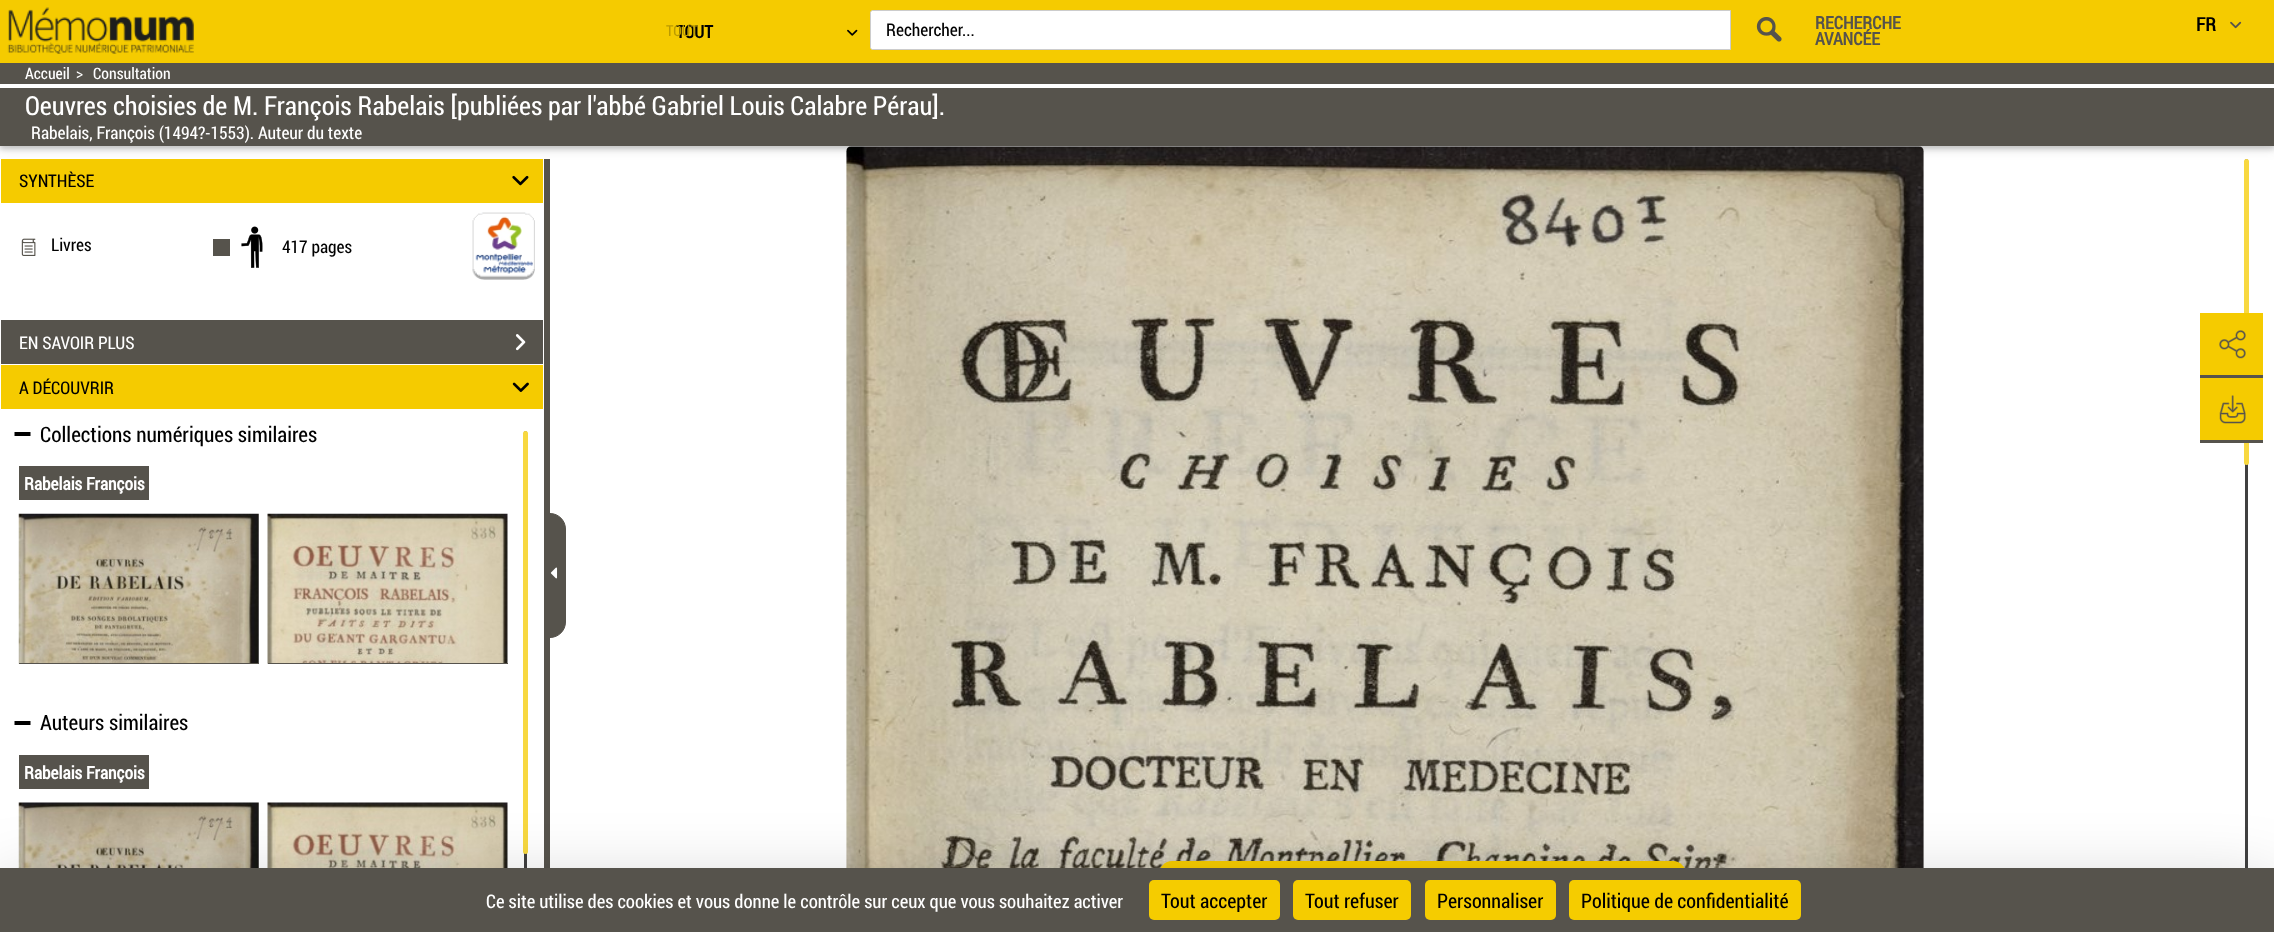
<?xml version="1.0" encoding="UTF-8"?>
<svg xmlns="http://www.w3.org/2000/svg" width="2274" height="932">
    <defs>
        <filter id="blur1" x="-50%" y="-200%" width="200%" height="500%"><feGaussianBlur stdDeviation="6"/></filter>
        <filter id="blur2" x="-50%" y="-200%" width="200%" height="500%"><feGaussianBlur stdDeviation="2.5"/></filter>
        <filter id="blur3" x="-50%" y="-200%" width="200%" height="500%"><feGaussianBlur stdDeviation="37.5"/></filter>
    </defs>
    <rect width="100%" height="100%" fill="#FFFFFF"/>
    <image x="846" y="146" width="1078" height="722" href="img_16.png"/>
    <rect x="2245" y="159" width="3" height="761" rx="1.5" fill="#404040"/>
    <rect x="2244" y="159" width="5" height="306" rx="2.5" fill="#F8D840"/>
    <rect x="0" y="65" width="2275" height="84" fill="#000000" fill-opacity="0.12" filter="url(#blur1)"/>
    <rect x="0" y="65" width="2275" height="84" fill="#000000" fill-opacity="0.16" filter="url(#blur2)"/>
    <rect x="0" y="0" width="2274" height="63" fill="#F5CB00"/>
    <image x="7" y="7" width="187" height="47" href="img_01.png"/>
    <text x="676" y="38" font-family="Roboto Condensed" font-size="17.5" font-weight="700" fill="#000000">TOUT</text>
    <text x="666" y="36" font-family="Roboto Condensed" font-size="15" fill="#BB9B00">TOUT</text>
    <image x="847" y="29" width="11" height="7" href="img_02.png"/>
    <path d="M 872.5 10.5 H 1730.5 V 49.5 H 872.5 C 871.5 49.5 870.5 48.5 870.5 47.5 V 12.5 C 870.5 11.5 871.5 10.5 872.5 10.5 Z" fill="#FFFFFF" stroke="#CCCCCC"/>
    <text x="886" y="36" font-family="Roboto Condensed" font-size="17.5" fill="#000000">Rechercher...</text>
    <image x="1756" y="17" width="26" height="25" href="img_03.png"/>
    <text font-family="Roboto Condensed" font-size="17.5" font-weight="700" fill="#56534C">
        <tspan x="1815" y="29">RECHERCHE</tspan>
        <tspan x="1815" y="45">AVANCÉE</tspan>
    </text>
    <text x="2196" y="31" font-family="Roboto Condensed" font-size="18.75" font-weight="700" fill="#000000">FR</text>
    <image x="2230" y="21" width="12" height="8" href="img_04.png"/>
    <rect x="0" y="63" width="2274" height="83" fill="#56534C"/>
    <rect x="0" y="84" width="2274" height="4" fill="#FFFFFF"/>
    <text x="25" y="79" font-family="Roboto Condensed" font-size="15.75" fill="#FFFFFF">Accueil</text>
    <text x="76" y="79" font-family="Roboto Condensed" font-size="15.75" fill="#FFFFFF">&gt;</text>
    <text x="93" y="79" font-family="Roboto Condensed" font-size="15.75" fill="#FFFFFF">Consultation</text>
    <text x="25" y="115" font-family="Roboto Condensed" font-size="26.25" fill="#FFFFFF">Oeuvres choisies de M. François Rabelais [publiées par l'abbé Gabriel Louis Calabre Pérau].</text>
    <text x="31" y="139" font-family="Roboto Condensed" font-size="17.5" fill="#FFFFFF">Rabelais, François (1494?-1553). Auteur du texte</text>
    <rect x="544" y="159" width="6" height="709" fill="#56534C"/>
    <rect x="1" y="159" width="542" height="44" fill="#F5CB00"/>
    <text x="19" y="187" font-family="Roboto Condensed" font-size="17.5" fill="#000000">SYNTHÈSE</text>
    <image x="512" y="175" width="17" height="11" href="img_05.png"/>
    <image x="21" y="238" width="15" height="18" href="img_06.png"/>
    <text x="51" y="251" font-family="Roboto Condensed" font-size="17.5" fill="#000000">Livres</text>
    <rect x="213" y="239" width="17" height="17" fill="#56534C"/>
    <image x="241" y="226" width="22" height="42" href="img_07.png"/>
    <text x="282" y="253" font-family="Roboto Condensed" font-size="17.5" fill="#000000">417 pages</text>
    <image x="472" y="212" width="63" height="68" href="img_08.png"/>
    <rect x="1" y="320" width="542" height="44" fill="#56534C"/>
    <text x="19" y="349" font-family="Roboto Condensed" font-size="17.5" fill="#FFFFFF">EN SAVOIR PLUS</text>
    <image x="515" y="334" width="11" height="17" href="img_09.png"/>
    <rect x="1" y="365" width="542" height="44" fill="#F5CB00"/>
    <text x="19" y="394" font-family="Roboto Condensed" font-size="17.5" fill="#000000">A DÉCOUVRIR</text>
    <image x="512" y="382" width="17" height="10" href="img_10.png"/>
    <text x="40" y="442" font-family="Roboto Condensed" font-size="21.25" fill="#000000">Collections numériques similaires</text>
    <path d="M 20.5 436 H 14.5 V 432 H 30.5 V 436 Z" fill="#000000"/>
    <rect x="19" y="466" width="130" height="34" fill="#56534C"/>
    <text x="24" y="490" font-family="Roboto Condensed" font-size="17.5" font-weight="700" fill="#FFFFFF">Rabelais François</text>
    <image x="18" y="513" width="241" height="151" href="img_11.png"/>
    <rect x="19" y="663" width="240" height="1" fill="#56534C"/>
    <image x="267" y="513" width="241" height="151" href="img_12.png"/>
    <rect x="268" y="663" width="240" height="1" fill="#56534C"/>
    <text x="40" y="730" font-family="Roboto Condensed" font-size="21.25" fill="#000000">Auteurs similaires</text>
    <path d="M 20.5 725 H 14.5 V 721 H 30.5 V 725 Z" fill="#000000"/>
    <rect x="19" y="755" width="130" height="34" fill="#56534C"/>
    <text x="24" y="779" font-family="Roboto Condensed" font-size="17.5" font-weight="700" fill="#FFFFFF">Rabelais François</text>
    <image x="18" y="802" width="241" height="66" href="img_13.png"/>
    <image x="267" y="802" width="241" height="66" href="img_14.png"/>
    <rect x="524" y="431" width="3" height="482" rx="1.5" fill="#404040"/>
    <rect x="523" y="431" width="5" height="423" rx="2.5" fill="#F8D840"/>
    <path d="M 550.5 513.5 H 550 C 558.5 513.5 565.5 520.5 565.5 529 V 622 C 565.5 630.5 558.5 637.5 550 637.5 H 550.5 Z" fill="#56534C" stroke="#56534C"/>
    <image x="550" y="567" width="8" height="12" href="img_15.png"/>
    <rect x="2200" y="313" width="63" height="62" fill="#F5CB00"/>
    <image x="2219" y="330" width="27" height="29" href="img_17.png"/>
    <rect x="2200" y="375" width="63" height="3" fill="#56534C"/>
    <rect x="2200" y="378" width="63" height="62" fill="#F5CB00"/>
    <image x="2219" y="395" width="27" height="29" href="img_18.png"/>
    <rect x="2200" y="440" width="63" height="3" fill="#56534C"/>
    <path d="M 1172 861 H 1673 C 1680 861 1686 867 1686 874 V 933 H 1159 V 874 C 1159 867 1165 861 1172 861 Z" fill="#F5CB00"/>
    <rect x="0" y="893" width="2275" height="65" fill="#000000" fill-opacity="0.25" filter="url(#blur3)"/>
    <rect x="0" y="868" width="2274" height="64" fill="#56534C"/>
    <text x="486" y="908" font-family="Roboto Condensed" font-size="18.75" fill="#FFFFFF">Ce site utilise des cookies et vous donne le contrôle sur ceux que vous souhaitez activer</text>
    <rect x="1149" y="880" width="131" height="40" rx="5" fill="#F5CC00"/>
    <text x="1161" y="908" font-family="Roboto Condensed" font-size="20" fill="#000000">Tout accepter</text>
    <rect x="1293" y="880" width="118" height="40" rx="5" fill="#F5CC00"/>
    <text x="1305" y="908" font-family="Roboto Condensed" font-size="20" fill="#000000">Tout refuser</text>
    <rect x="1425" y="880" width="131" height="40" rx="5" fill="#F5CC00"/>
    <text x="1437" y="908" font-family="Roboto Condensed" font-size="20" fill="#000000">Personnaliser</text>
    <rect x="1569" y="880" width="232" height="40" rx="5" fill="#F5CC00"/>
    <text x="1581" y="908" font-family="Roboto Condensed" font-size="20" fill="#000000">Politique de confidentialité</text>
</svg>
